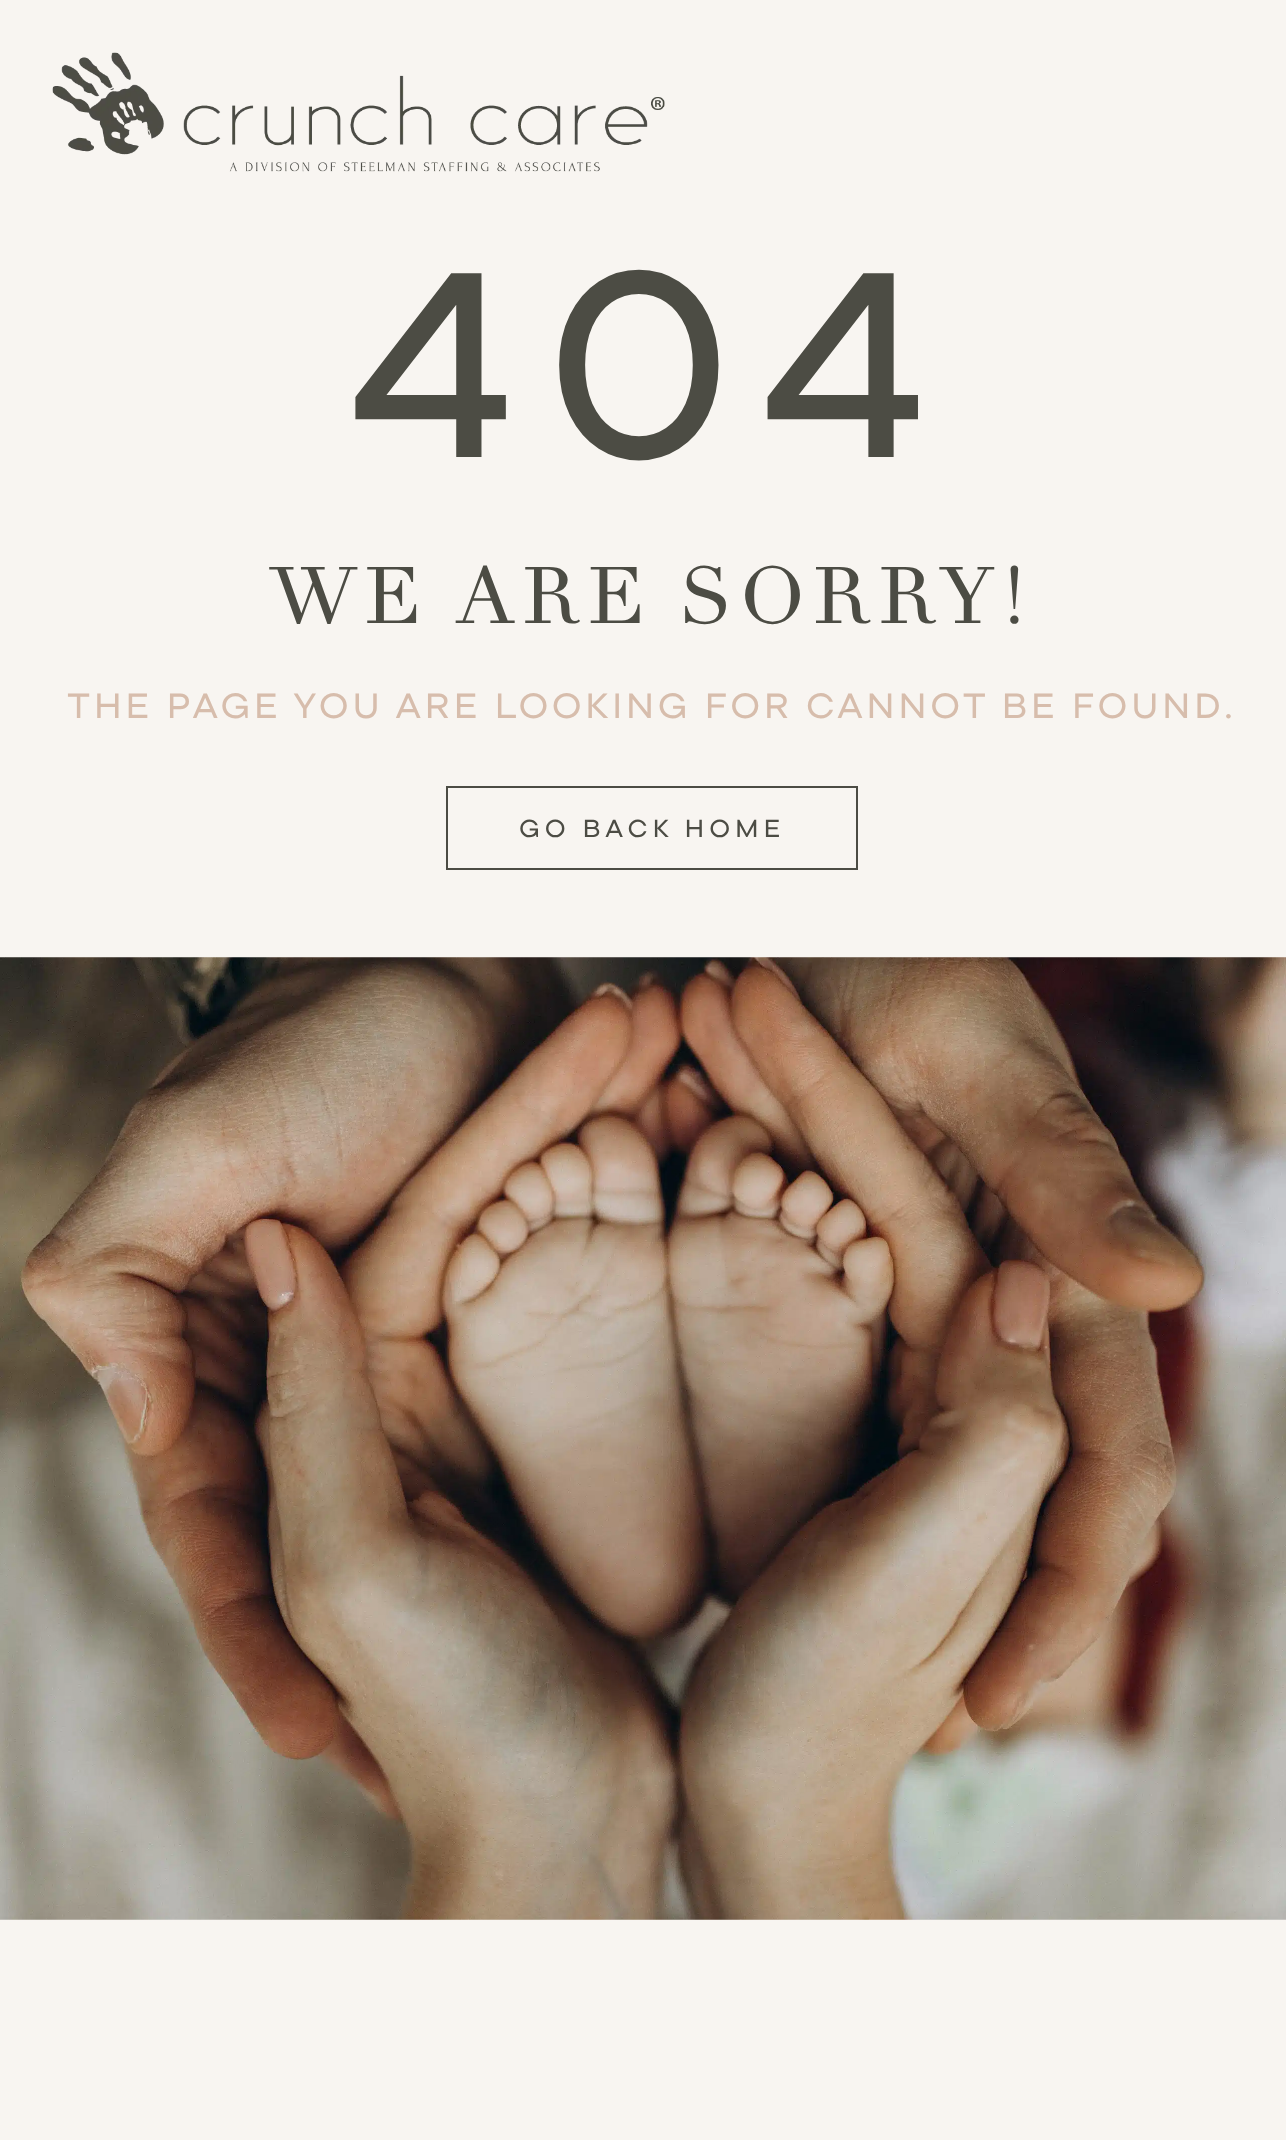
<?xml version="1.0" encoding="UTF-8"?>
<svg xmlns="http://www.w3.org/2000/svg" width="1286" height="2140">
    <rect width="100%" height="100%" fill="#F8F5F1"/>
    <image x="52" y="52" width="613" height="120" href="img_01.png"/>
    <text x="346" y="457" font-family="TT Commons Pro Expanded" font-size="262.5" font-weight="500" letter-spacing="26" fill="#4C4C44">404</text>
    <text x="270" y="623" font-family="Didot" font-size="78.75" letter-spacing="7.9" fill="#4C4C44">WE ARE SORRY!</text>
    <text x="67" y="718" font-family="'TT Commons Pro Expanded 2'" font-size="35" font-weight="500" letter-spacing="3.5" fill="#D7BDAC">THE PAGE YOU ARE LOOKING FOR CANNOT BE FOUND.</text>
    <rect x="447" y="787" width="410" height="82" fill="none" stroke="#4C4C44" stroke-width="2"/>
    <text x="519" y="837" font-family="'TT Commons Pro Expanded 2'" font-size="24.5" font-weight="500" letter-spacing="4.9" fill="#4C4C44">GO BACK HOME</text>
    <image x="0" y="957" width="1286" height="963" href="img_02.png"/>
</svg>
